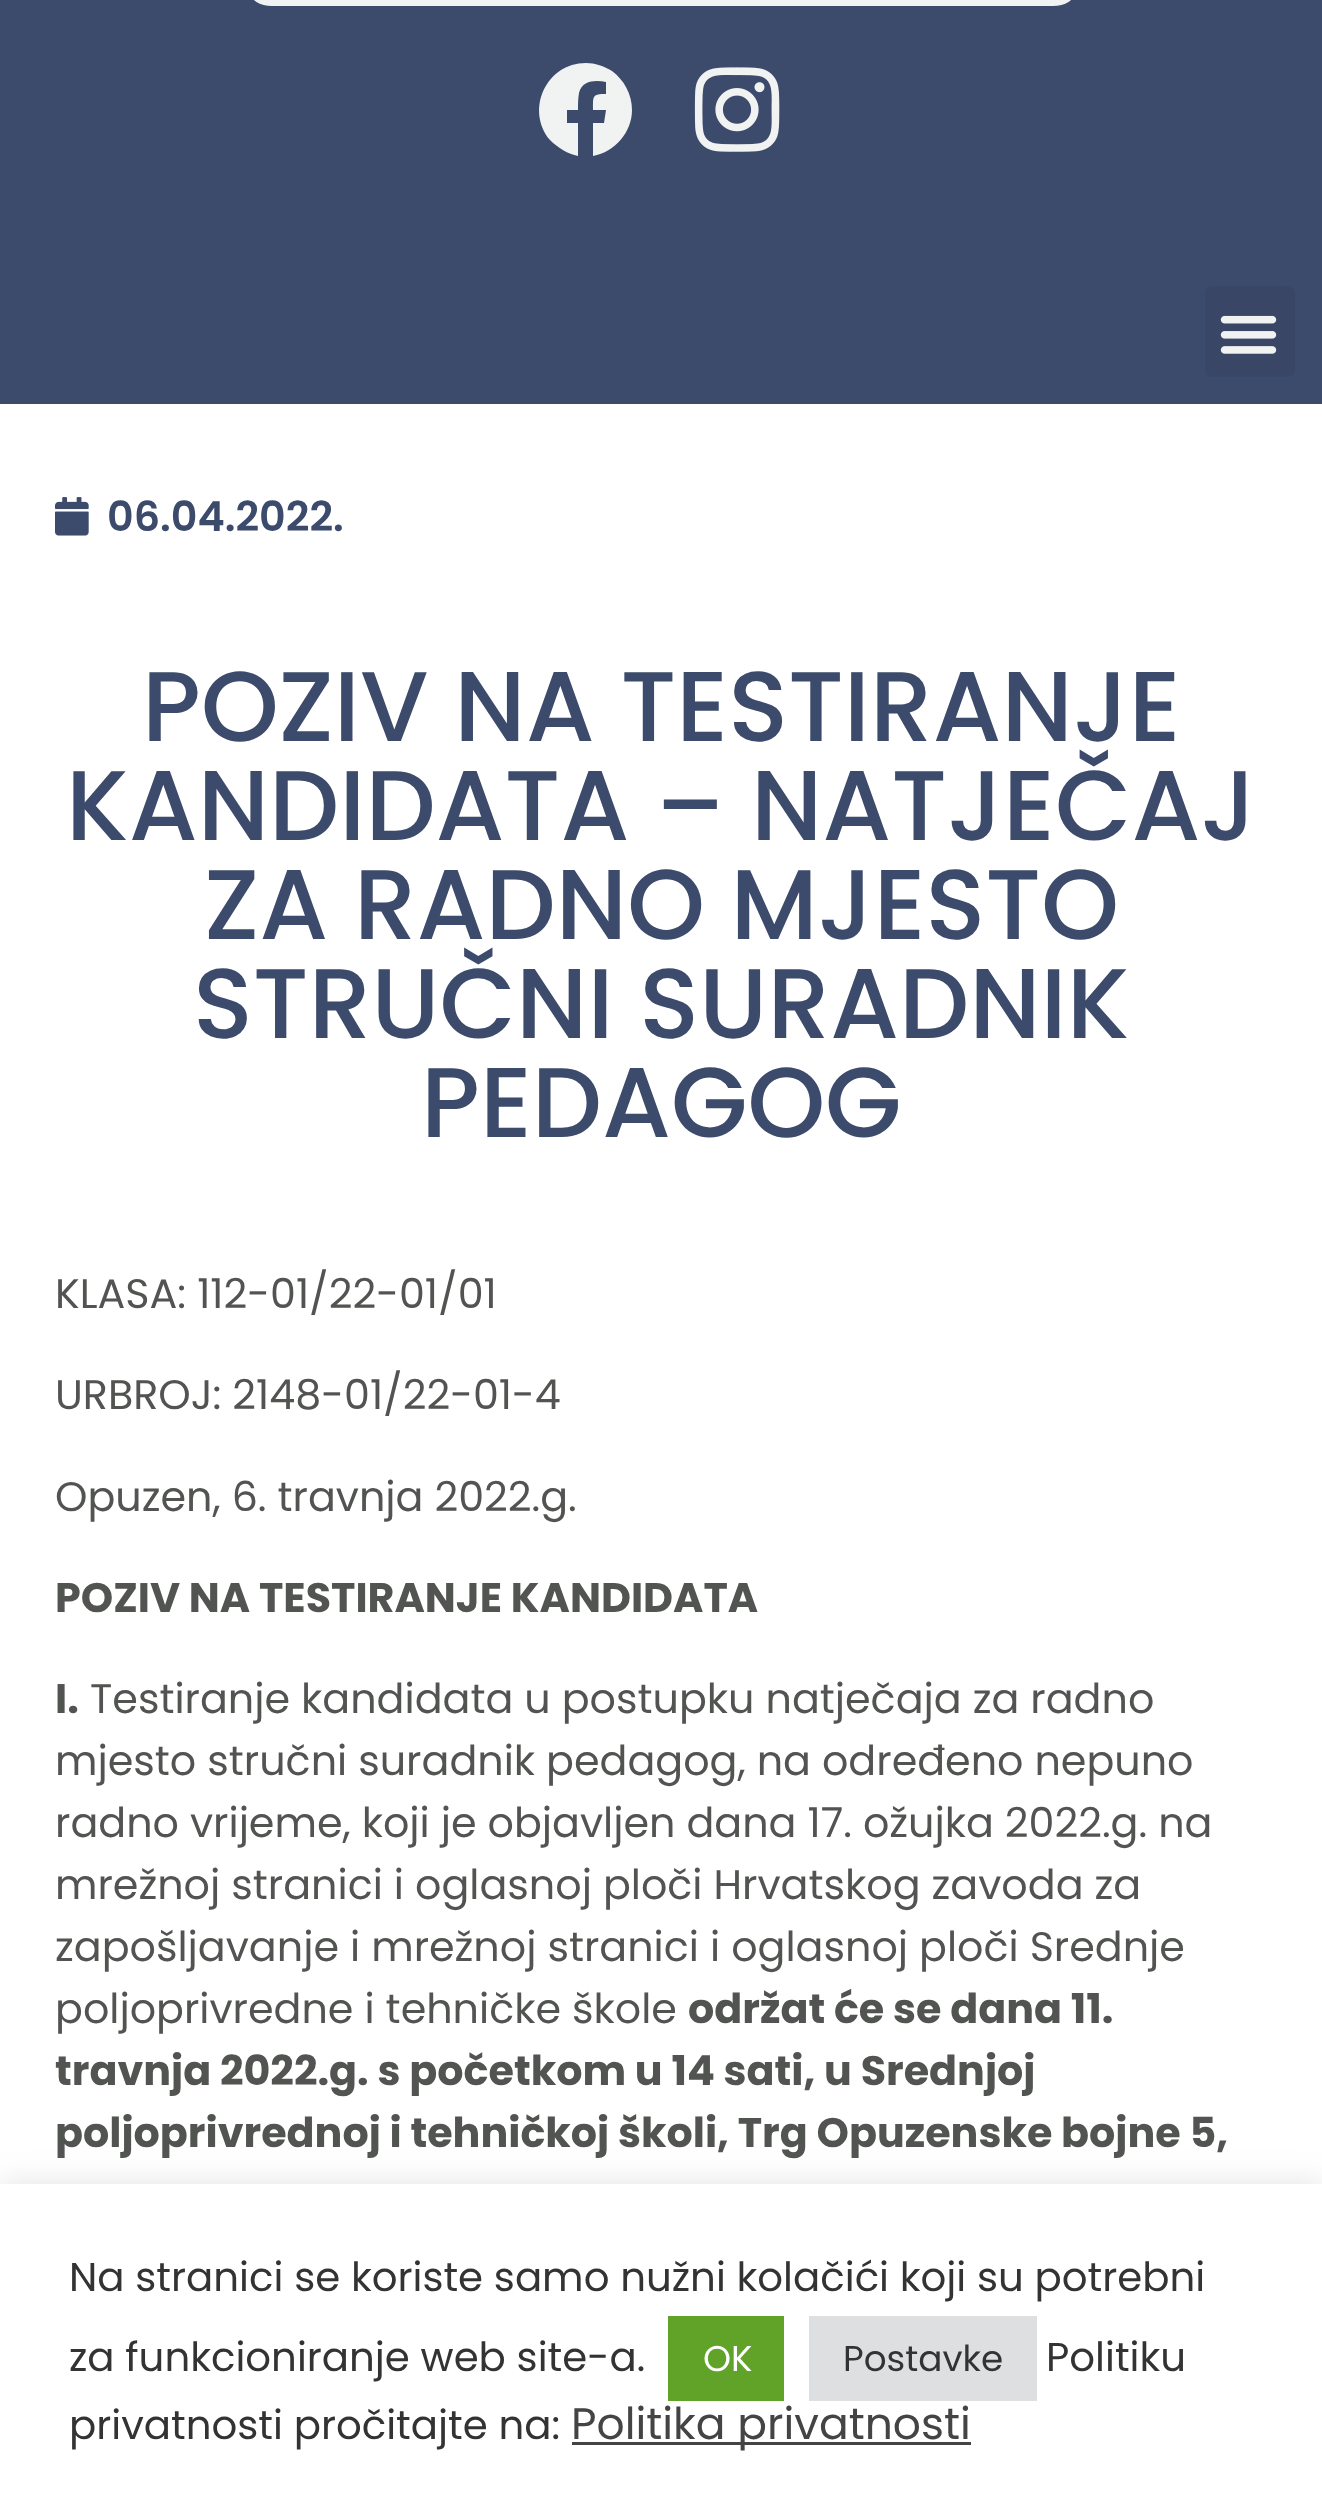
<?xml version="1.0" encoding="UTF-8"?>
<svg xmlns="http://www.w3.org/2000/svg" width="1322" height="2519">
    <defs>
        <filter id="blur1" x="-50%" y="-200%" width="200%" height="500%"><feGaussianBlur stdDeviation="14"/></filter>
    </defs>
    <rect width="100%" height="100%" fill="#FFFFFF"/>
    <rect x="0" y="0" width="1322" height="404" fill="#3C4A6B"/>
    <rect x="250" y="-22" width="825" height="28" rx="22" fill="#F1F2F3"/>
    <path d="M 632 110 C 632 132 615 152 593 156 V 123 H 604 L 606 110 H 593 C 593 96 592 94 606 94 V 82 C 596 80 582 80 579 93 C 578 99 578 104 578 110 H 567 V 123 H 578 V 156 C 568 154 558 148 550 140 C 525 110 546 63 586 63 C 595 63 604 66 612 71 C 624 80 632 94 632 110 Z" fill="#F1F2F2"/>
    <image x="694" y="67" width="86" height="85" href="img_01.png"/>
    <rect x="1205" y="286" width="90" height="91" rx="8" fill="#394666"/>
    <image x="1220" y="315" width="57" height="39" href="img_02.png"/>
    <image x="55" y="497" width="34" height="39" href="img_03.png"/>
    <text x="107" y="531" font-family="Poppins" font-size="41.25" font-weight="600" fill="#3C4A6B">06.04.2022.</text>
    <text x="142" y="741" font-family="Poppins" font-size="99" font-weight="500" fill="#3C4A6B">POZIV NA TESTIRANJE</text>
    <text x="66" y="840" font-family="Poppins" font-size="99" font-weight="500" fill="#3C4A6B">KANDIDATA – NATJEČAJ</text>
    <text x="204" y="939" font-family="Poppins" font-size="99" font-weight="500" fill="#3C4A6B">ZA RADNO MJESTO</text>
    <text x="193" y="1038" font-family="Poppins" font-size="99" font-weight="500" fill="#3C4A6B">STRUČNI SURADNIK</text>
    <text x="421" y="1137" font-family="Poppins" font-size="99" font-weight="500" fill="#3C4A6B">PEDAGOG</text>
    <text x="55" y="1308" font-family="Poppins" font-size="41.25" fill="#525451">KLASA: 112-01/22-01/01</text>
    <text x="55" y="1409" font-family="Poppins" font-size="41.25" fill="#525451">URBROJ: 2148-01/22-01-4</text>
    <text x="55" y="1511" font-family="Poppins" font-size="41.25" fill="#525451">Opuzen, 6. travnja 2022.g.</text>
    <text x="55" y="1612" font-family="Poppins" font-size="41.25" font-weight="700" fill="#525451">POZIV NA TESTIRANJE KANDIDATA</text>
    <text x="55" y="1713" font-family="Poppins" font-size="41.25" font-weight="700" fill="#525451">I.</text>
    <text x="90" y="1713" font-family="Poppins" font-size="41.25" fill="#525451">Testiranje kandidata u postupku natječaja za radno</text>
    <text font-family="Poppins" font-size="41.25" fill="#525451">
        <tspan x="55" y="1775">mjesto stručni suradnik pedagog, na određeno nepuno</tspan>
        <tspan x="55" y="1837">radno vrijeme, koji je objavljen dana 17. ožujka 2022.g. na</tspan>
        <tspan x="55" y="1899">mrežnoj stranici i oglasnoj ploči Hrvatskog zavoda za</tspan>
        <tspan x="55" y="1961">zapošljavanje i mrežnoj stranici i oglasnoj ploči Srednje</tspan>
        <tspan x="55" y="2023">poljoprivredne i tehničke škole</tspan>
    </text>
    <text x="688" y="2023" font-family="Poppins" font-size="41.25" font-weight="700" fill="#525451">održat će se dana 11.</text>
    <text font-family="Poppins" font-size="41.25" font-weight="700" fill="#525451">
        <tspan x="55" y="2085">travnja 2022.g. s početkom u 14 sati, u Srednjoj</tspan>
        <tspan x="55" y="2147">poljoprivrednoj i tehničkoj školi, Trg Opuzenske bojne 5,</tspan>
    </text>
    <rect x="0" y="2181" width="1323" height="335" fill="#ACABAB" fill-opacity="0.3" filter="url(#blur1)"/>
    <rect x="0" y="2184" width="1322" height="335" fill="#FFFFFF"/>
    <text font-family="Poppins" font-size="40.3" fill="#333333">
        <tspan x="69" y="2291">Na stranici se koriste samo nužni kolačići koji su potrebni</tspan>
        <tspan x="69" y="2371">za funkcioniranje web site-a.</tspan>
    </text>
    <rect x="668" y="2316" width="116" height="85" fill="#61A229"/>
    <text x="703" y="2371" font-family="Poppins" font-size="35.75" fill="#FFFFFF">OK</text>
    <rect x="809" y="2316" width="228" height="85" fill="#DEDFE0"/>
    <text x="843" y="2371" font-family="Poppins" font-size="35.75" fill="#333333">Postavke</text>
    <text x="1046" y="2371" font-family="Poppins" font-size="40.3" fill="#333333">Politiku</text>
    <text x="69" y="2439" font-family="Poppins" font-size="40.3" fill="#333333">privatnosti pročitajte na:</text>
    <rect x="572" y="2442" width="399" height="3" fill="#444444"/>
    <text x="571" y="2439" font-family="Poppins" font-size="44" fill="#444444">Politika privatnosti</text>
</svg>
